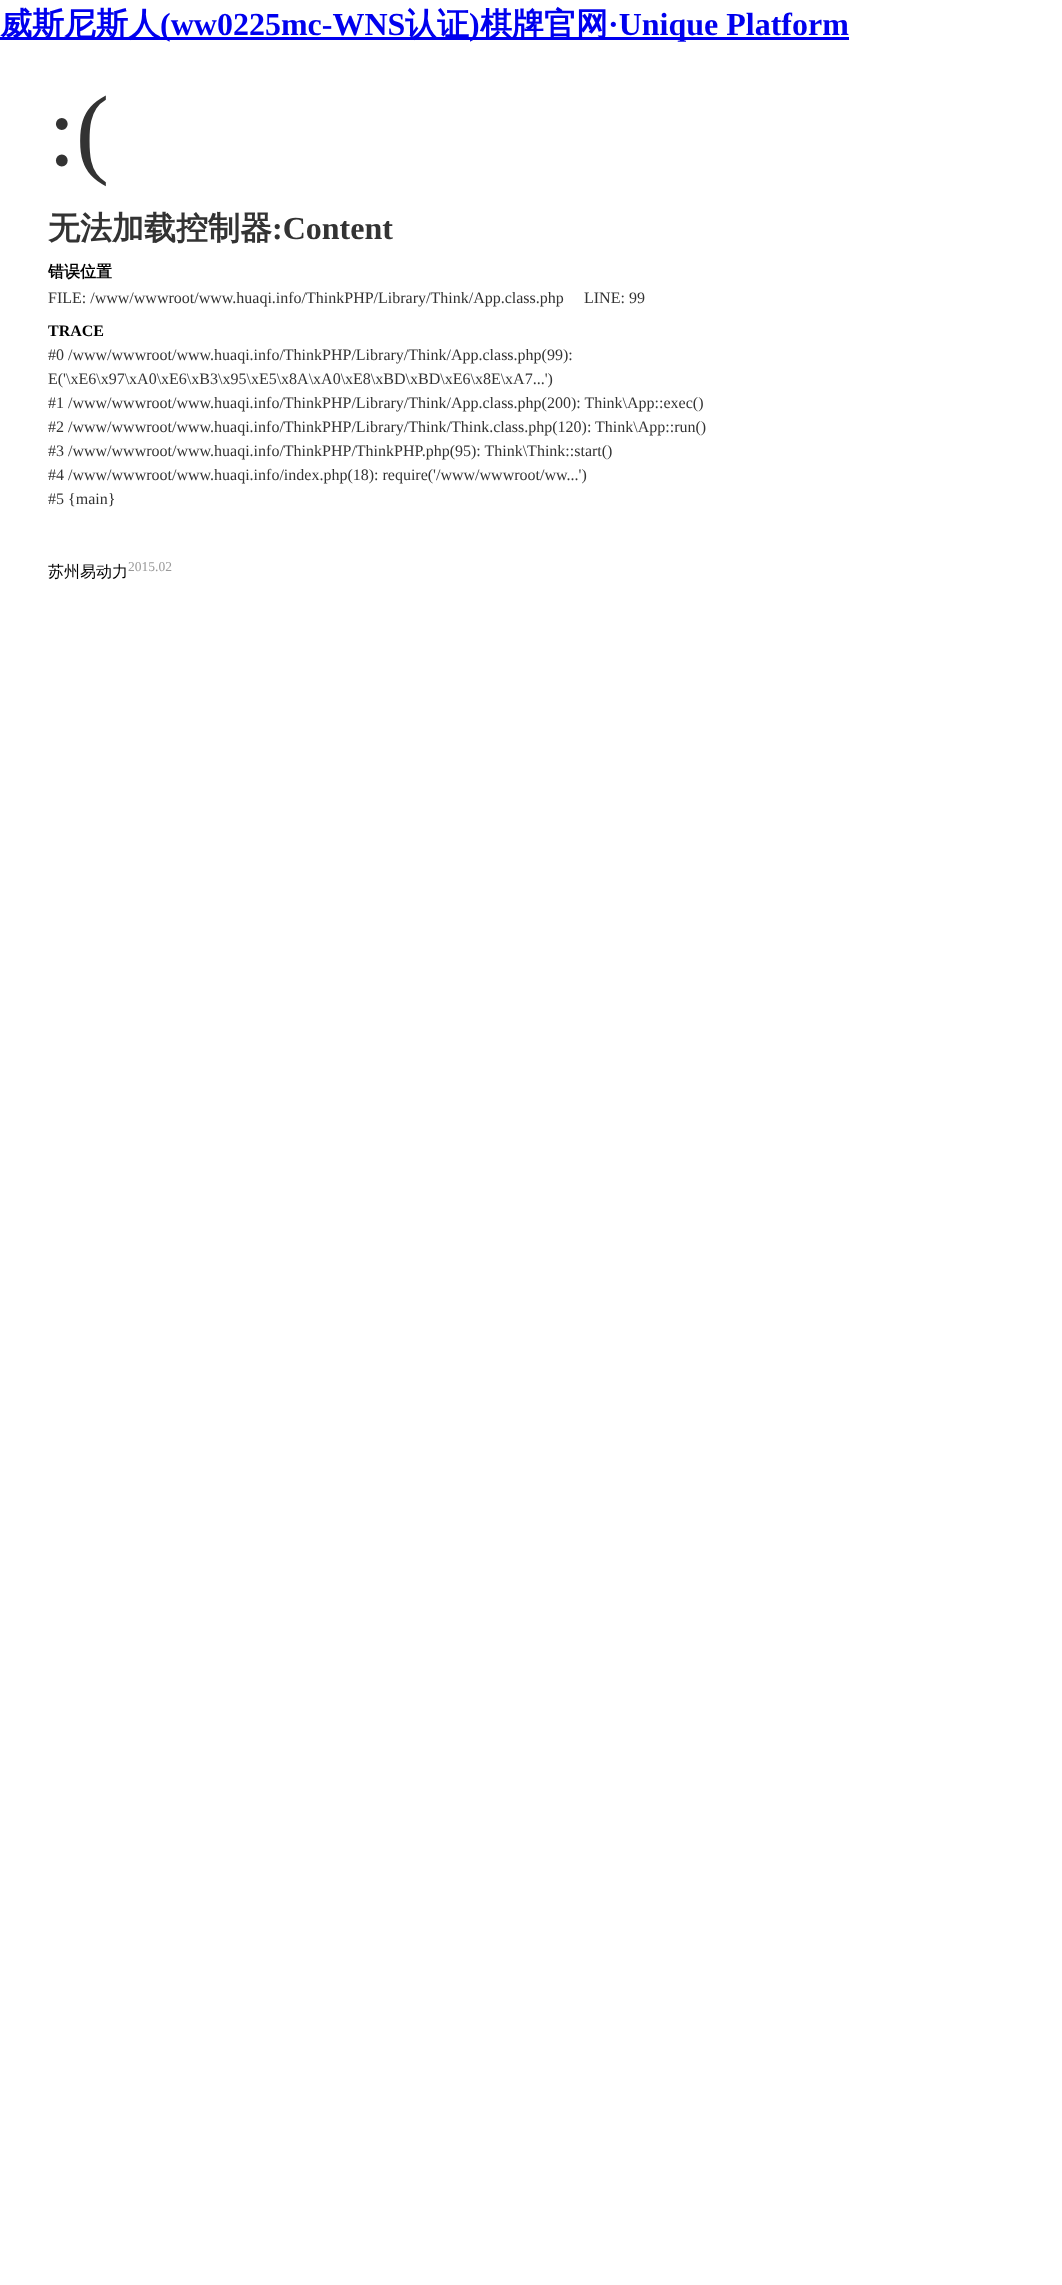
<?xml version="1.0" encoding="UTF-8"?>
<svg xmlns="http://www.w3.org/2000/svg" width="1062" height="2285">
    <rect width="100%" height="100%" fill="#FFFFFF"/>
    <rect x="0" y="37" width="849" height="3" fill="#0000EE"/>
    <text x="0" y="35" font-family="WenQuanYi Zen Hei" font-size="32" font-weight="700" fill="#0000EE">威斯尼斯人</text>
    <text x="160" y="35" font-family="Liberation Serif" font-size="32" font-weight="700" fill="#0000EE">(ww0225mc-WNS</text>
    <text x="405" y="35" font-family="WenQuanYi Zen Hei" font-size="32" font-weight="700" fill="#0000EE">认证</text>
    <text x="469" y="35" font-family="Liberation Serif" font-size="32" font-weight="700" fill="#0000EE">)</text>
    <text x="480" y="35" font-family="WenQuanYi Zen Hei" font-size="32" font-weight="700" fill="#0000EE">棋牌官网</text>
    <text x="608" y="35" font-family="Liberation Serif" font-size="32" font-weight="700" fill="#0000EE">·Unique Platform</text>
    <text x="48" y="165" font-family="Liberation Serif" font-size="100" fill="#333333">:(</text>
    <text x="48" y="239" font-family="WenQuanYi Zen Hei" font-size="32" font-weight="700" fill="#333333">无法加载控制器</text>
    <text x="272" y="239" font-family="Liberation Serif" font-size="32" font-weight="700" fill="#333333">:Content</text>
    <text x="48" y="277" font-family="WenQuanYi Zen Hei" font-size="16" font-weight="700" fill="#000000">错误位置</text>
    <text x="48" y="303" font-family="Liberation Serif" font-size="16" fill="#333333">FILE: /www/wwwroot/www.huaqi.info/ThinkPHP/Library/Think/App.class.php</text>
    <text x="584" y="303" font-family="Liberation Serif" font-size="16" fill="#333333">LINE: 99</text>
    <text x="48" y="336" font-family="Liberation Serif" font-size="16" font-weight="700" fill="#000000">TRACE</text>
    <text font-family="Liberation Serif" font-size="16" fill="#333333">
        <tspan x="48" y="360">#0 /www/wwwroot/www.huaqi.info/ThinkPHP/Library/Think/App.class.php(99):</tspan>
        <tspan x="48" y="384">E('\xE6\x97\xA0\xE6\xB3\x95\xE5\x8A\xA0\xE8\xBD\xBD\xE6\x8E\xA7...')</tspan>
        <tspan x="48" y="408">#1 /www/wwwroot/www.huaqi.info/ThinkPHP/Library/Think/App.class.php(200): Think\App::exec()</tspan>
        <tspan x="48" y="432">#2 /www/wwwroot/www.huaqi.info/ThinkPHP/Library/Think/Think.class.php(120): Think\App::run()</tspan>
        <tspan x="48" y="456">#3 /www/wwwroot/www.huaqi.info/ThinkPHP/ThinkPHP.php(95): Think\Think::start()</tspan>
        <tspan x="48" y="480">#4 /www/wwwroot/www.huaqi.info/index.php(18): require('/www/wwwroot/ww...')</tspan>
        <tspan x="48" y="504">#5 {main}</tspan>
    </text>
    <text x="48" y="577" font-family="WenQuanYi Zen Hei" font-size="16" font-weight="500" fill="#000000">苏州易动力</text>
    <text x="128" y="571" font-family="Liberation Serif" font-size="13.5" fill="#999999">2015.02</text>
</svg>
